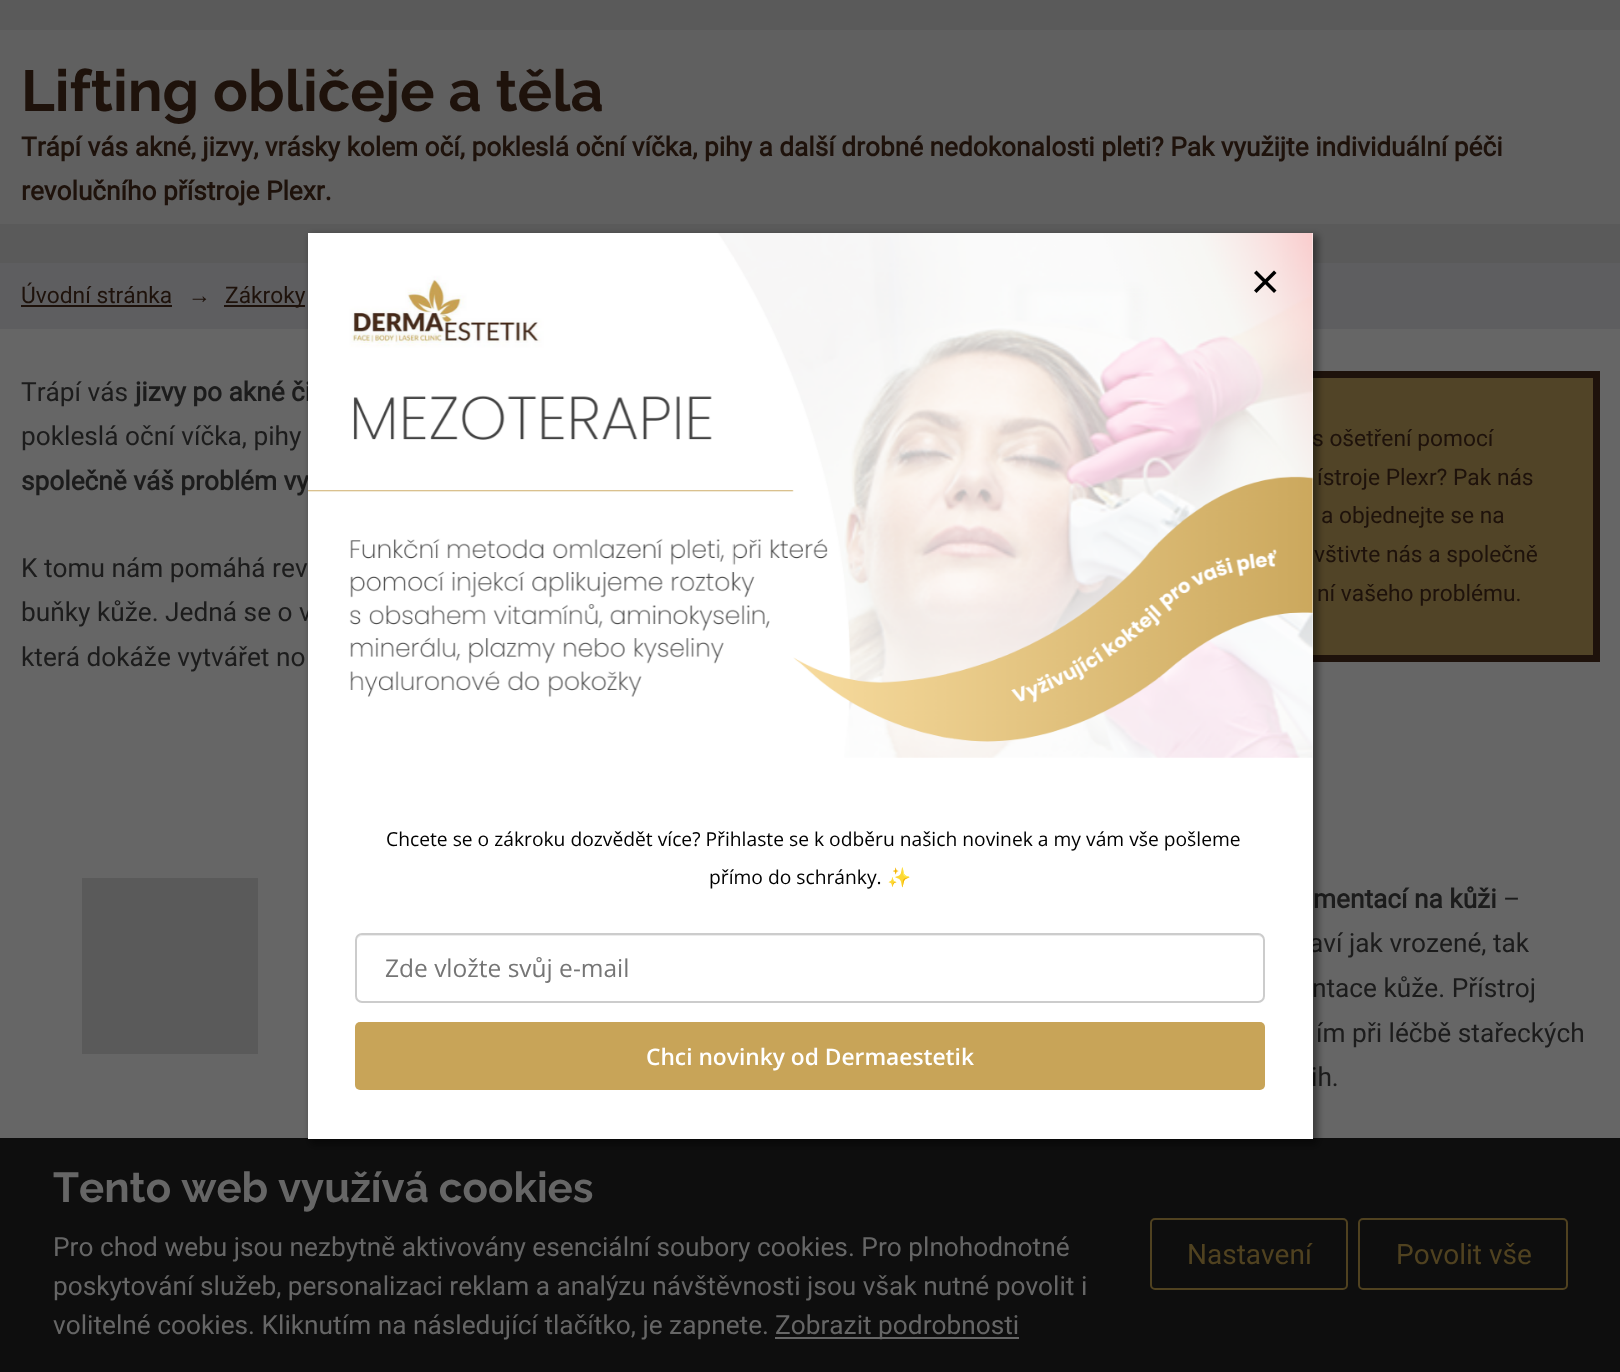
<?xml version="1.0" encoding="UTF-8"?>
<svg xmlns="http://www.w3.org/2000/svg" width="1620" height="1372">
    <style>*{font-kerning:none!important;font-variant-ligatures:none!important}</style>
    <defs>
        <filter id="blur1" x="-50%" y="-200%" width="200%" height="500%"><feGaussianBlur stdDeviation="3.5"/></filter>
    </defs>
    <rect width="100%" height="100%" fill="#666666"/>
    <rect x="0" y="0" width="1620" height="263" fill="#5A5A5A"/>
    <rect x="0" y="30" width="1620" height="194" fill="#606060"/>
    <text x="21" y="111" font-family="Raleway" font-size="57.75" font-weight="700" fill="#1E120B">Lifting obličeje a těla</text>
    <text font-family="Roboto" font-size="26.25" font-weight="700" fill="#1E120B">
        <tspan x="21" y="156">Trápí vás akné, jizvy, vrásky kolem očí, pokleslá oční víčka, pihy a další drobné nedokonalosti pleti? Pak využijte individuální péči</tspan>
        <tspan x="21" y="200">revolučního přístroje Plexr.</tspan>
    </text>
    <rect x="0" y="263" width="1620" height="66" fill="#5E5E60"/>
    <text x="21" y="303" font-family="Roboto" font-size="22.75" fill="#1E120B">Úvodní stránka</text>
    <rect x="21" y="305" width="151" height="2" fill="#1E120B"/>
    <text x="188" y="303" font-family="Liberation Sans" font-size="22.75" font-weight="700" fill="#1E120B">→</text>
    <rect x="224" y="305" width="81" height="2" fill="#1E120B"/>
    <text x="225" y="303" font-family="Roboto" font-size="22.75" fill="#1E120B">Zákroky</text>
    <text x="21" y="401" font-family="Roboto" font-size="26.25" fill="#1C1C1C">Trápí vás</text>
    <text x="135" y="401" font-family="Roboto" font-size="26.25" font-weight="700" fill="#1C1C1C">jizvy po akné či</text>
    <text x="21" y="445" font-family="Roboto" font-size="26.25" fill="#1C1C1C">pokleslá oční víčka, pihy</text>
    <text x="21" y="490" font-family="Roboto" font-size="26.25" font-weight="700" fill="#1C1C1C">společně váš problém vy</text>
    <text font-family="Roboto" font-size="26.25" fill="#1C1C1C">
        <tspan x="21" y="577">K tomu nám pomáhá rev</tspan>
        <tspan x="21" y="621">buňky kůže. Jedná se o v</tspan>
        <tspan x="21" y="666">která dokáže vytvářet no</tspan>
    </text>
    <rect x="1313" y="378" width="280" height="277" fill="#514427"/>
    <rect x="1111.5" y="374.5" width="485" height="284" fill="none" stroke="#1E120B" stroke-width="7"/>
    <text x="1312" y="446" font-family="Roboto" font-size="22.75" fill="#1E120B">s ošetření pomocí</text>
    <text x="1317" y="485" font-family="Roboto" font-size="22.75" fill="#1E120B">ístroje Plexr? Pak nás</text>
    <text x="1321" y="523" font-family="Roboto" font-size="22.75" fill="#1E120B">a objednejte se na</text>
    <text x="1314" y="562" font-family="Roboto" font-size="22.75" fill="#1E120B">vštivte nás a společně</text>
    <text x="1317" y="601" font-family="Roboto" font-size="22.75" fill="#1E120B">ní vašeho problému.</text>
    <rect x="82" y="878" width="176" height="176" fill="#5A5A5A"/>
    <text x="1313" y="908" font-family="Roboto" font-size="26.25" font-weight="700" fill="#1C1C1C">mentací na kůži</text>
    <text x="1503" y="908" font-family="Roboto" font-size="26.25" fill="#1C1C1C">–</text>
    <text x="1309" y="952" font-family="Roboto" font-size="26.25" fill="#1C1C1C">aví jak vrozené, tak</text>
    <text x="1312" y="997" font-family="Roboto" font-size="26.25" fill="#1C1C1C">ntace kůže. Přístroj</text>
    <text x="1316" y="1042" font-family="Roboto" font-size="26.25" fill="#1C1C1C">ím při léčbě stařeckých</text>
    <text x="1311" y="1086" font-family="Roboto" font-size="26.25" fill="#1C1C1C">ih.</text>
    <rect x="0" y="1138" width="1620" height="234" fill="#0E0E0E"/>
    <rect x="310" y="235" width="1008" height="910" fill="#000000" fill-opacity="0.41" filter="url(#blur1)"/>
    <rect x="308" y="233" width="1005" height="906" fill="#FFFFFF"/>
    <image x="308" y="233" width="1005" height="525" href="img_01.png"/>
    <path d="M 1274 270.5 L 1276.5 273 L 1256.5 293 L 1254 290.5 Z" fill="#000000"/>
    <path d="M 1254 273 L 1256.5 270.5 L 1276.5 290.5 L 1274 293 Z" fill="#000000"/>
    <text x="386" y="846" font-family="Open Sans" font-size="19.25" fill="#000000">Chcete se o zákroku dozvědět více? Přihlaste se k odběru našich novinek a my vám vše pošleme</text>
    <text x="709" y="884" font-family="Open Sans" font-size="19.25" fill="#000000">přímo do schránky.</text>
    <text x="887" y="884" font-family="Noto Color Emoji" font-size="19.25" fill="#000000">✨</text>
    <path d="M 362 936 H 1258 C 1261 936 1264 939 1264 941 C 1264 938 1262 935 1259 935 H 362 C 359 935 357 938 357 941 C 357 939 359 936 362 936 Z" fill="#ECECEC"/>
    <rect x="356" y="934" width="908" height="68" rx="6" fill="none" stroke="#CCCCCC" stroke-width="2"/>
    <text x="385" y="977" font-family="Open Sans" font-size="24.5" fill="#757575">Zde vložte svůj e-mail</text>
    <rect x="355" y="1022" width="910" height="68" rx="5" fill="#C8A458"/>
    <text x="646" y="1065" font-family="Open Sans" font-size="22.75" font-weight="600" fill="#FFFFFF">Chci novinky od Dermaestetik</text>
    <text x="53" y="1202" font-family="Raleway" font-size="42" font-weight="700" fill="#666666">Tento web</text>
    <text x="278" y="1202" font-family="Raleway" font-size="42" font-weight="700" fill="#666666">využívá cookies</text>
    <text font-family="Roboto" font-size="26.25" fill="#666666">
        <tspan x="53" y="1256">Pro chod webu jsou nezbytně aktivovány esenciální soubory cookies. Pro plnohodnotné</tspan>
        <tspan x="53" y="1295">poskytování služeb, personalizaci reklam a analýzu návštěvnosti jsou však nutné povolit i</tspan>
        <tspan x="53" y="1334">volitelné cookies. Kliknutím na následující tlačítko, je zapnete.</tspan>
    </text>
    <rect x="775" y="1337" width="244" height="2" fill="#666666"/>
    <text x="775" y="1334" font-family="Roboto" font-size="26.25" fill="#666666">Zobrazit podrobnosti</text>
    <rect x="1151" y="1219" width="196" height="70" rx="4" fill="none" stroke="#504220" stroke-width="2"/>
    <text x="1187" y="1264" font-family="Roboto" font-size="28" fill="#504220">Nastavení</text>
    <rect x="1359" y="1219" width="208" height="70" rx="4" fill="none" stroke="#504220" stroke-width="2"/>
    <text x="1396" y="1264" font-family="Roboto" font-size="28" fill="#504220">Povolit vše</text>
</svg>
